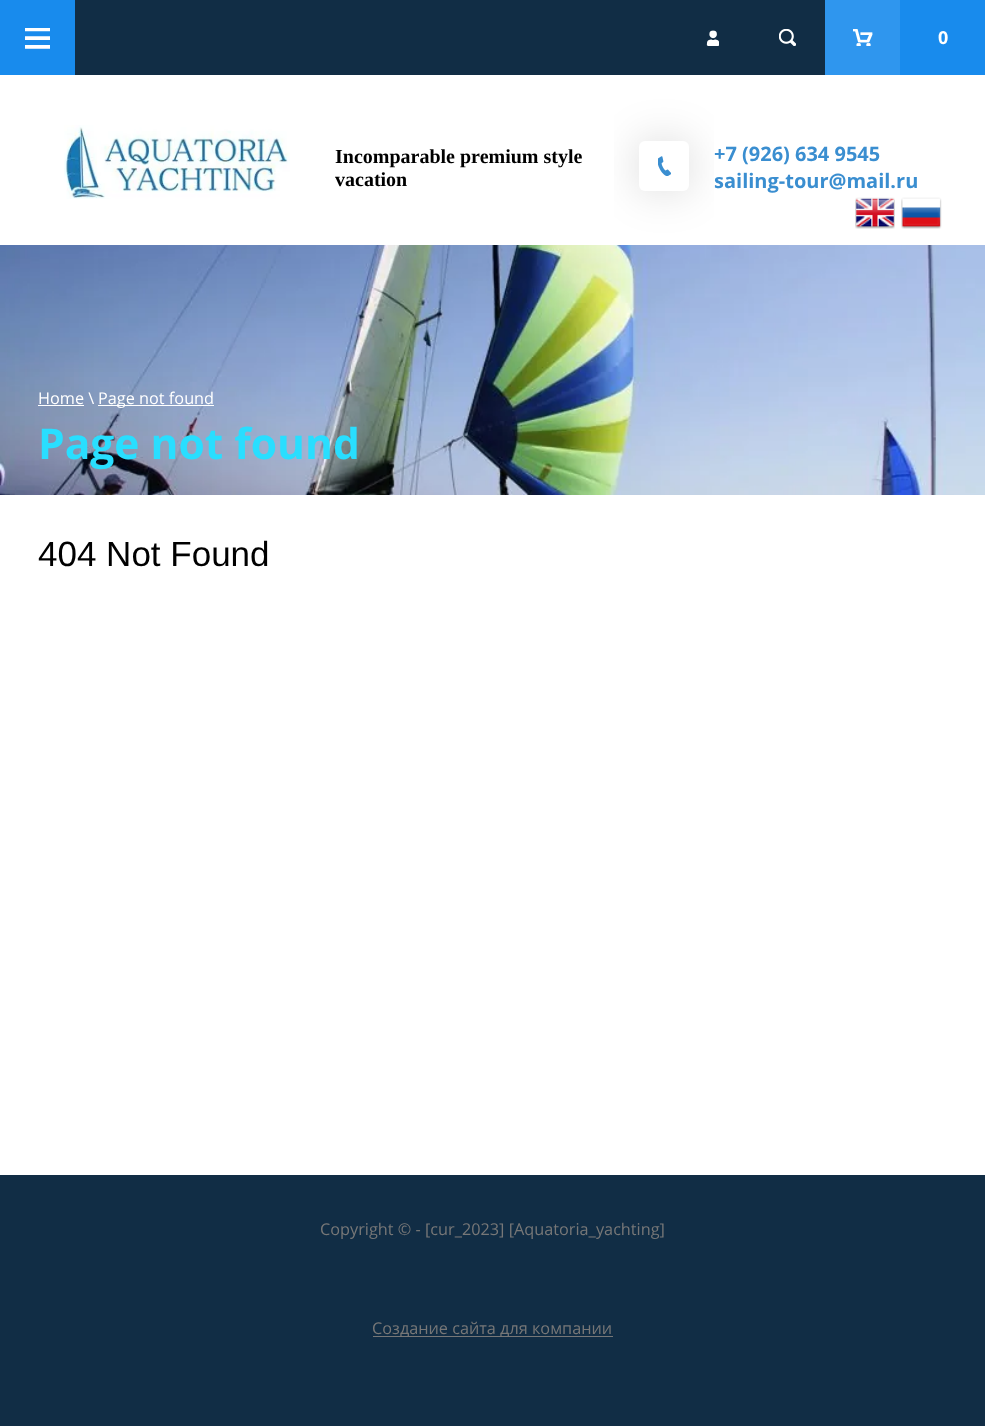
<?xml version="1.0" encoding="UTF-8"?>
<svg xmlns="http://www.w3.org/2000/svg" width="985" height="1426">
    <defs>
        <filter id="blur1" x="-50%" y="-200%" width="200%" height="500%"><feGaussianBlur stdDeviation="22"/></filter>
    </defs>
    <rect width="100%" height="100%" fill="#FFFFFF"/>
    <rect x="639" y="141" width="50" height="50" rx="6" fill="#000000" fill-opacity="0.15" filter="url(#blur1)"/>
    <rect x="75" y="0" width="750" height="75" fill="#112D45"/>
    <rect x="0" y="0" width="75" height="75" fill="#188BED"/>
    <image x="25" y="28" width="25" height="21" href="img_01.png"/>
    <image x="706" y="30" width="13" height="16" href="img_02.png"/>
    <image x="779" y="29" width="17" height="17" href="img_03.png"/>
    <rect x="900" y="0" width="85" height="75" fill="#188BED"/>
    <rect x="825" y="0" width="75" height="75" fill="#2F96EE"/>
    <image x="853" y="29" width="20" height="17" href="img_04.png"/>
    <text x="938" y="44" font-family="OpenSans" font-size="18" font-weight="700" fill="#FFFFFF">0</text>
    <image x="64" y="125" width="226" height="74" href="img_05.png"/>
    <text font-family="Liberation Serif" font-size="20" font-weight="700" fill="#000000">
        <tspan x="335" y="163">Incomparable premium style</tspan>
        <tspan x="335" y="186">vacation</tspan>
    </text>
    <rect x="639" y="141" width="50" height="50" rx="6" fill="#FFFFFF"/>
    <image x="658" y="156" width="13" height="20" href="img_06.png"/>
    <text font-family="OpenSans" font-size="20" font-weight="700" fill="#3A8ED0">
        <tspan x="714" y="161">+7 (926) 634 9545</tspan>
        <tspan x="714" y="188">sailing-tour@mail.ru</tspan>
    </text>
    <image x="855" y="197" width="40" height="32" href="img_07.png"/>
    <image x="901" y="197" width="41" height="32" href="img_08.png"/>
    <image x="0" y="245" width="985" height="250" href="img_09.png"/>
    <text x="38" y="404" font-family="OpenSans" font-size="16.25" fill="#FFFFFF">Home \</text>
    <rect x="38" y="405" width="46" height="1" fill="#FFFFFF"/>
    <rect x="98" y="405" width="116" height="1" fill="#FFFFFF"/>
    <text x="98" y="404" font-family="OpenSans" font-size="16.25" fill="#FFFFFF">Page not found</text>
    <text x="38" y="459" font-family="OpenSans" font-size="42.5" font-weight="700" fill="#29DEFF">Page not found</text>
    <text x="38" y="566" font-family="Liberation Sans" font-size="35" fill="#000000">404 Not Found</text>
    <rect x="0" y="1175" width="985" height="251" fill="#112D45"/>
    <text x="320" y="1235" font-family="OpenSans" font-size="16.25" fill="#777777">Copyright © - [cur_2023] [Aquatoria_yachting]</text>
    <rect x="373" y="1336" width="240" height="1" fill="#777777"/>
    <text x="372" y="1334" font-family="OpenSans" font-size="16.25" fill="#777777">Создание сайта для компании</text>
</svg>
